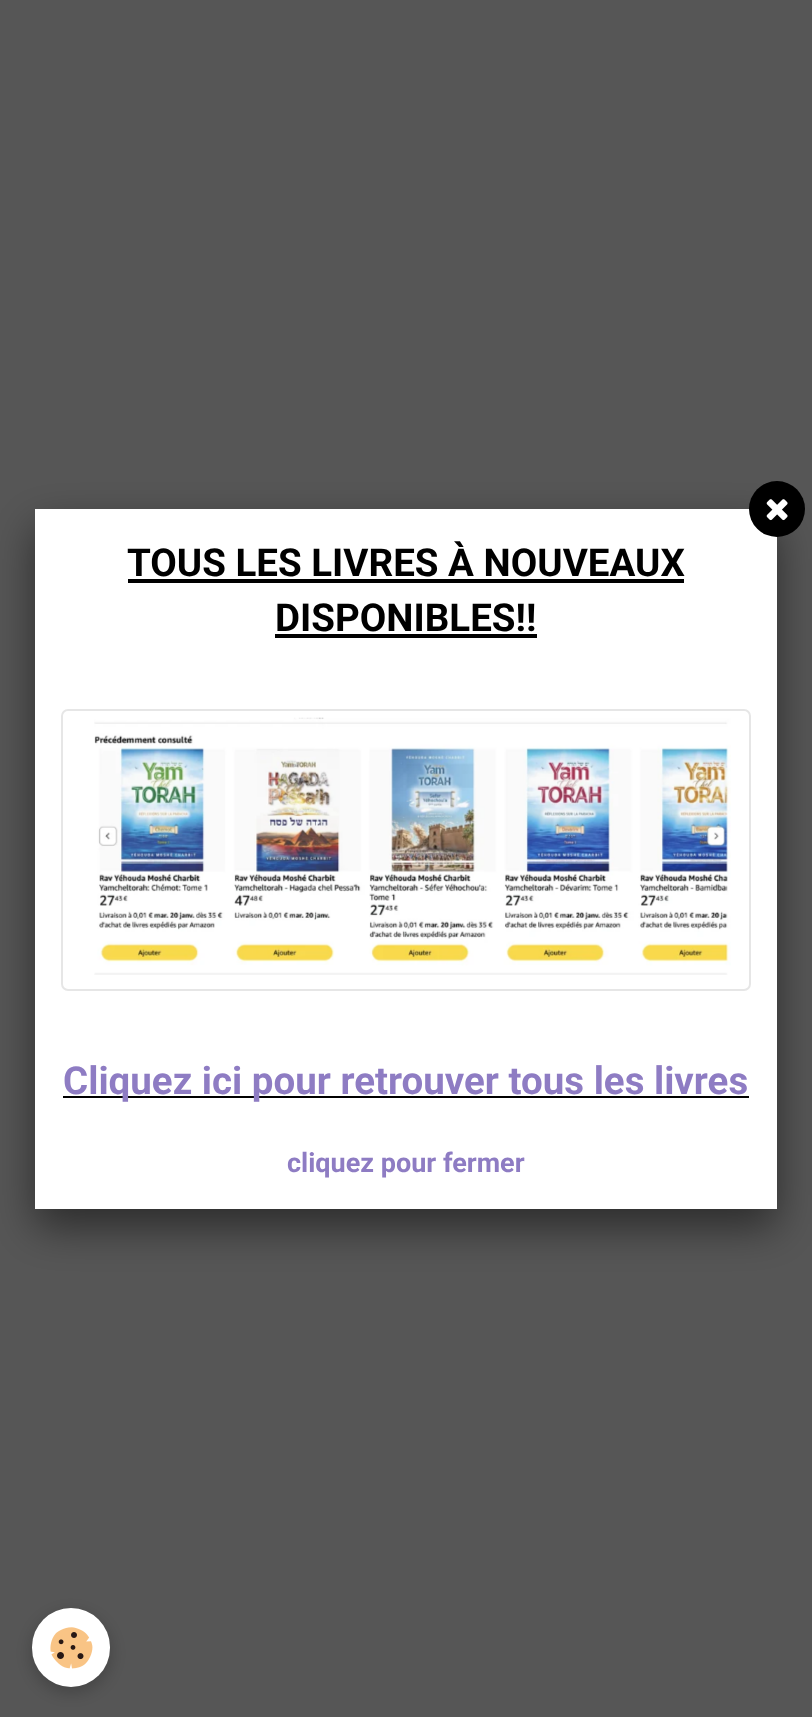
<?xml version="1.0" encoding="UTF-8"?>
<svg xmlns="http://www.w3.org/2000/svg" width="812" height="1717">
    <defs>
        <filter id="blur1" x="-50%" y="-200%" width="200%" height="500%"><feGaussianBlur stdDeviation="22"/></filter>
        <filter id="blur2" x="-50%" y="-200%" width="200%" height="500%"><feGaussianBlur stdDeviation="9"/></filter>
    </defs>
    <rect width="100%" height="100%" fill="#565656"/>
    <rect x="35" y="527" width="742" height="700" fill="#000000" fill-opacity="0.5" filter="url(#blur1)"/>
    <rect x="35" y="509" width="742" height="700" fill="#FFFFFF"/>
    <circle cx="777" cy="509" r="28" fill="#000000"/>
    <image x="766" y="499" width="22" height="22" href="img_01.png"/>
    <text x="127" y="576" font-family="Roboto" font-size="38.5" font-weight="700" fill="#000000">TOUS LES LIVRES À NOUVEAUX</text>
    <rect x="128" y="579" width="556" height="4" fill="#000000"/>
    <text x="275" y="631" font-family="Roboto" font-size="38.5" font-weight="700" fill="#000000">DISPONIBLES!!</text>
    <rect x="275" y="634" width="262" height="4" fill="#000000"/>
    <rect x="62" y="710" width="688" height="280" rx="6" fill="none" stroke="#E6E6E6" stroke-width="2"/>
    <image x="94" y="717" width="637" height="258" href="img_02.png"/>
    <rect x="63" y="1096" width="686" height="2" fill="#000000"/>
    <text x="63" y="1094" font-family="Roboto" font-size="38.5" font-weight="700" fill="#8E7CC3">Cliquez ici pour retrouver tous les livres</text>
    <text x="287" y="1172" font-family="Roboto" font-size="27" font-weight="700" fill="#8E7CC3">cliquez pour fermer</text>
    <rect x="32" y="1614" width="78" height="78" rx="39" fill="#000000" fill-opacity="0.24" filter="url(#blur2)"/>
    <rect x="32" y="1608" width="78" height="79" rx="39" fill="#FFFFFF"/>
    <image x="50" y="1627" width="43" height="42" href="img_03.png"/>
</svg>
